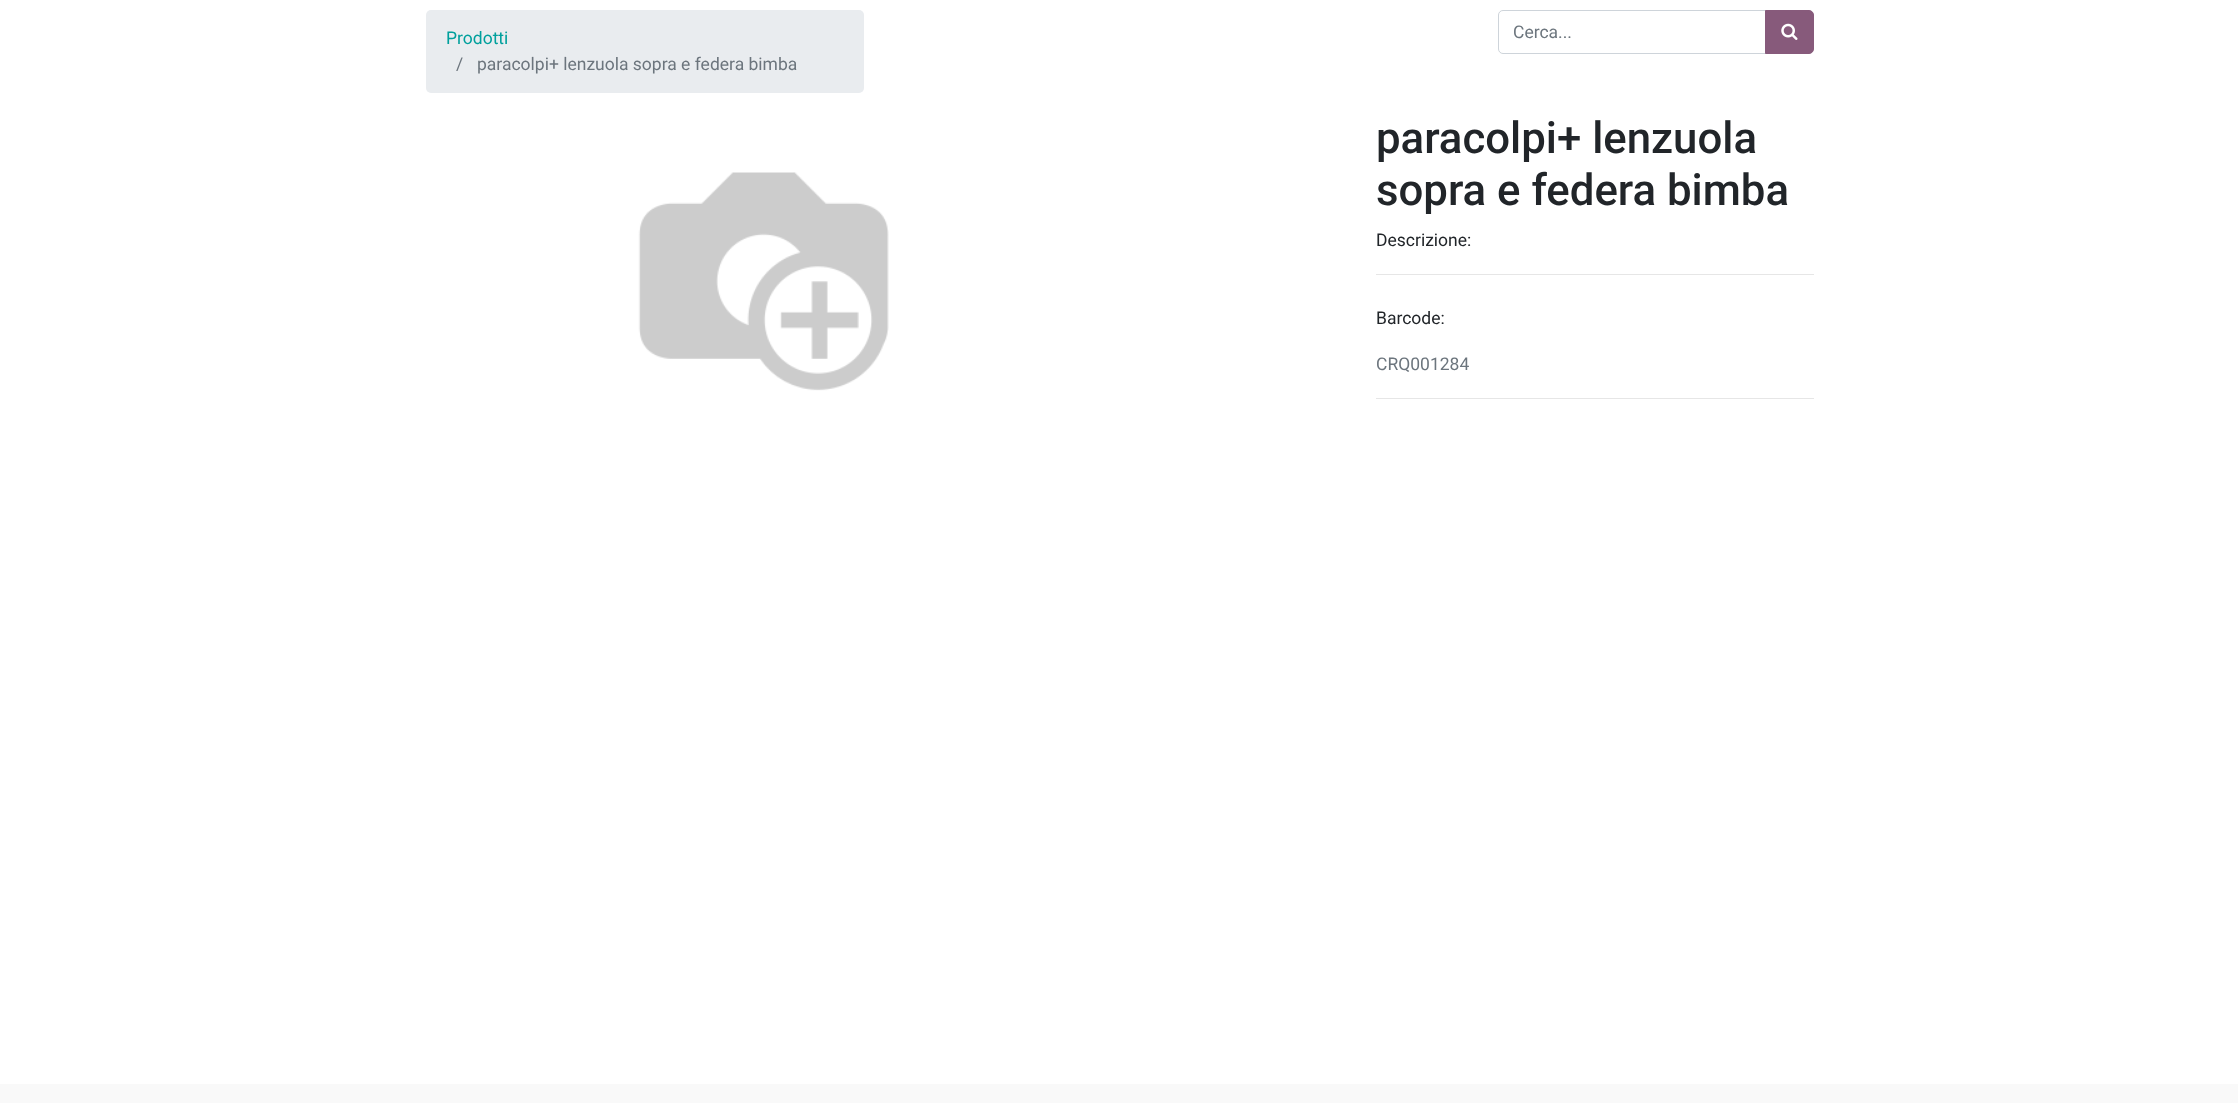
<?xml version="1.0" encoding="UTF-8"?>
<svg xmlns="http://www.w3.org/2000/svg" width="2238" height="1103">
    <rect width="100%" height="100%" fill="#FFFFFF"/>
    <rect x="426" y="10" width="438" height="83" rx="5" fill="#E9ECEF"/>
    <text x="446" y="44" font-family="Roboto" font-size="17.5" fill="#00A09D">Prodotti</text>
    <text x="456" y="70" font-family="Roboto" font-size="17.5" fill="#6C757D">/</text>
    <text x="477" y="70" font-family="Roboto" font-size="17.5" fill="#6C757D">paracolpi+ lenzuola sopra e federa bimba</text>
    <path d="M 1503 10.5 H 1765.5 V 53.5 H 1503 C 1500.5 53.5 1498.5 51.5 1498.5 49 V 15 C 1498.5 12.5 1500.5 10.5 1503 10.5 Z" fill="none" stroke="#CED4DA"/>
    <text x="1513" y="38" font-family="Roboto" font-size="17.5" fill="#6C757D">Cerca...</text>
    <path d="M 1765.5 10.5 H 1809 C 1811.5 10.5 1813.5 12.5 1813.5 15 V 49 C 1813.5 51.5 1811.5 53.5 1809 53.5 H 1765.5 Z" fill="#875A7B" stroke="#875A7B"/>
    <image x="1781" y="23" width="17" height="17" href="img_01.png"/>
    <image x="638" y="172" width="251" height="219" href="img_02.png"/>
    <text font-family="Roboto" font-size="43.75" font-weight="500" fill="#212529">
        <tspan x="1376" y="153">paracolpi+ lenzuola</tspan>
        <tspan x="1376" y="205">sopra e federa bimba</tspan>
    </text>
    <text x="1376" y="246" font-family="Roboto" font-size="17.5" fill="#212529">Descrizione:</text>
    <rect x="1376" y="274" width="438" height="1" fill="#E6E6E6"/>
    <text x="1376" y="324" font-family="Roboto" font-size="17.5" fill="#212529">Barcode:</text>
    <text x="1376" y="370" font-family="Roboto" font-size="17.5" fill="#6C757D">CRQ001284</text>
    <rect x="1376" y="398" width="438" height="1" fill="#E6E6E6"/>
    <rect x="0" y="1084" width="2238" height="19" fill="#F9F9F9"/>
</svg>
